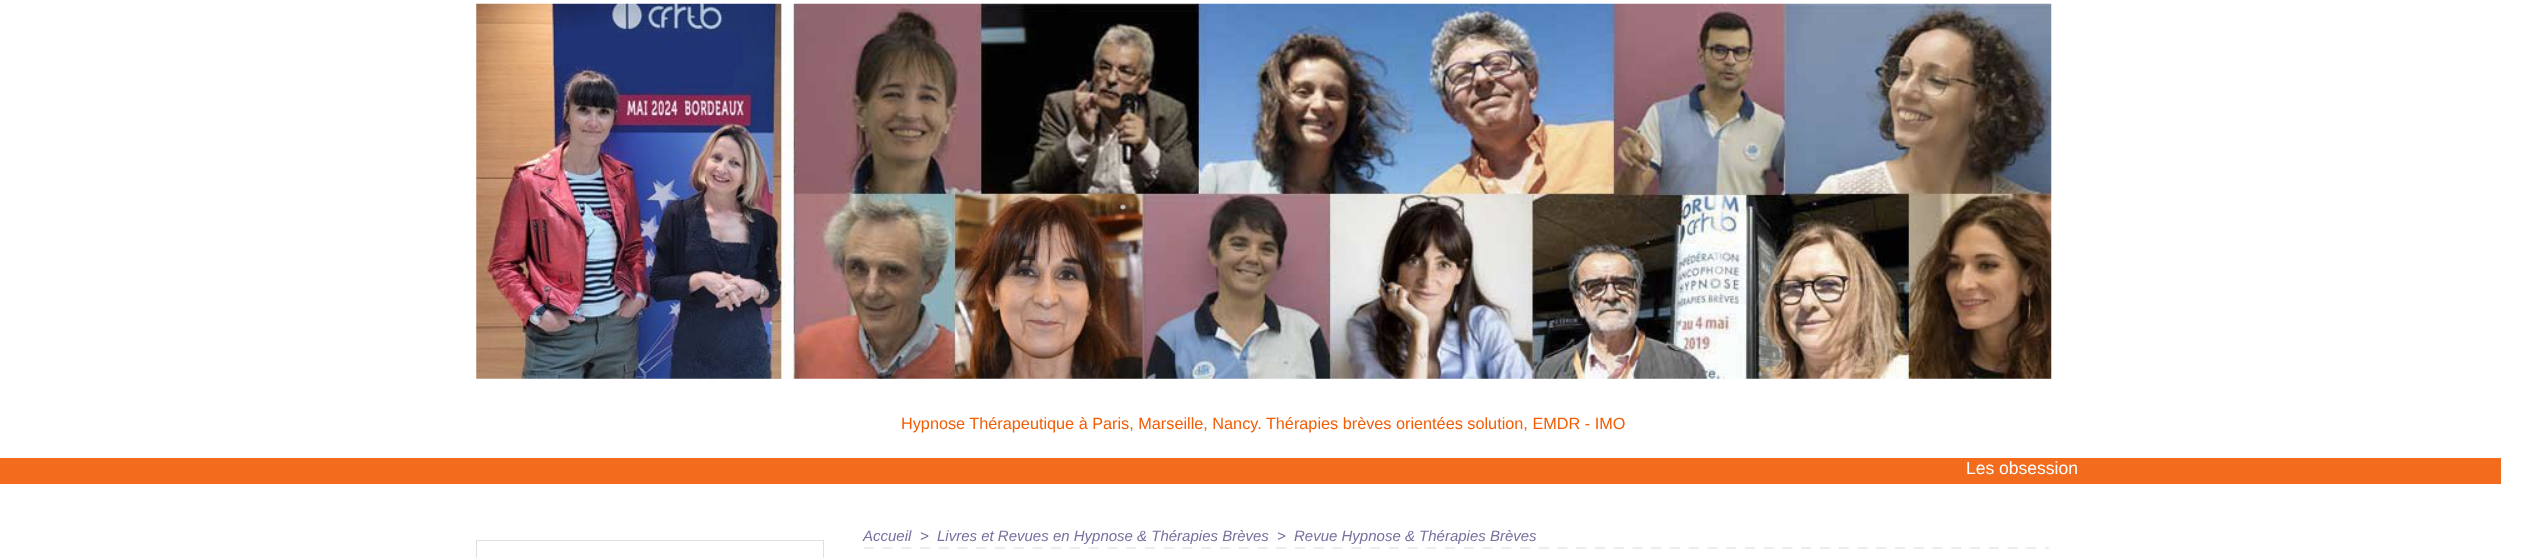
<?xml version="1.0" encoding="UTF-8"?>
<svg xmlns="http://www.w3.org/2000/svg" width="2526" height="558">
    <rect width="100%" height="100%" fill="#FFFFFF"/>
    <image x="476" y="3" width="1576" height="376" href="img_01.png"/>
    <text x="901" y="429" font-family="Liberation Sans" font-size="16.25" fill="#F25C05">Hypnose Thérapeutique à Paris, Marseille, Nancy. Thérapies brèves orientées solution, EMDR - IMO</text>
    <rect x="0" y="458" width="2501" height="26" fill="#F36C1E"/>
    <text x="1966" y="474" font-family="Liberation Sans" font-size="17.5" fill="#FFFFFF">Les obsession</text>
    <text x="863" y="541" font-family="Liberation Sans" font-size="15" font-style="italic" fill="#786F9F">Accueil</text>
    <text x="920" y="541" font-family="Liberation Sans" font-size="15" font-style="italic" fill="#786F9F">&gt;</text>
    <text x="937" y="541" font-family="Liberation Sans" font-size="15" font-style="italic" fill="#786F9F">Livres et Revues en Hypnose &amp; Thérapies Brèves</text>
    <text x="1277" y="541" font-family="Liberation Sans" font-size="15" font-style="italic" fill="#786F9F">&gt;</text>
    <text x="1294" y="541" font-family="Liberation Sans" font-size="15" font-style="italic" fill="#786F9F">Revue Hypnose &amp; Thérapies Brèves</text>
    <image x="864" y="547" width="1185" height="2" href="img_02.png"/>
    <rect x="476.5" y="540.5" width="347" height="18" fill="none" stroke="#E0E0E0"/>
</svg>
